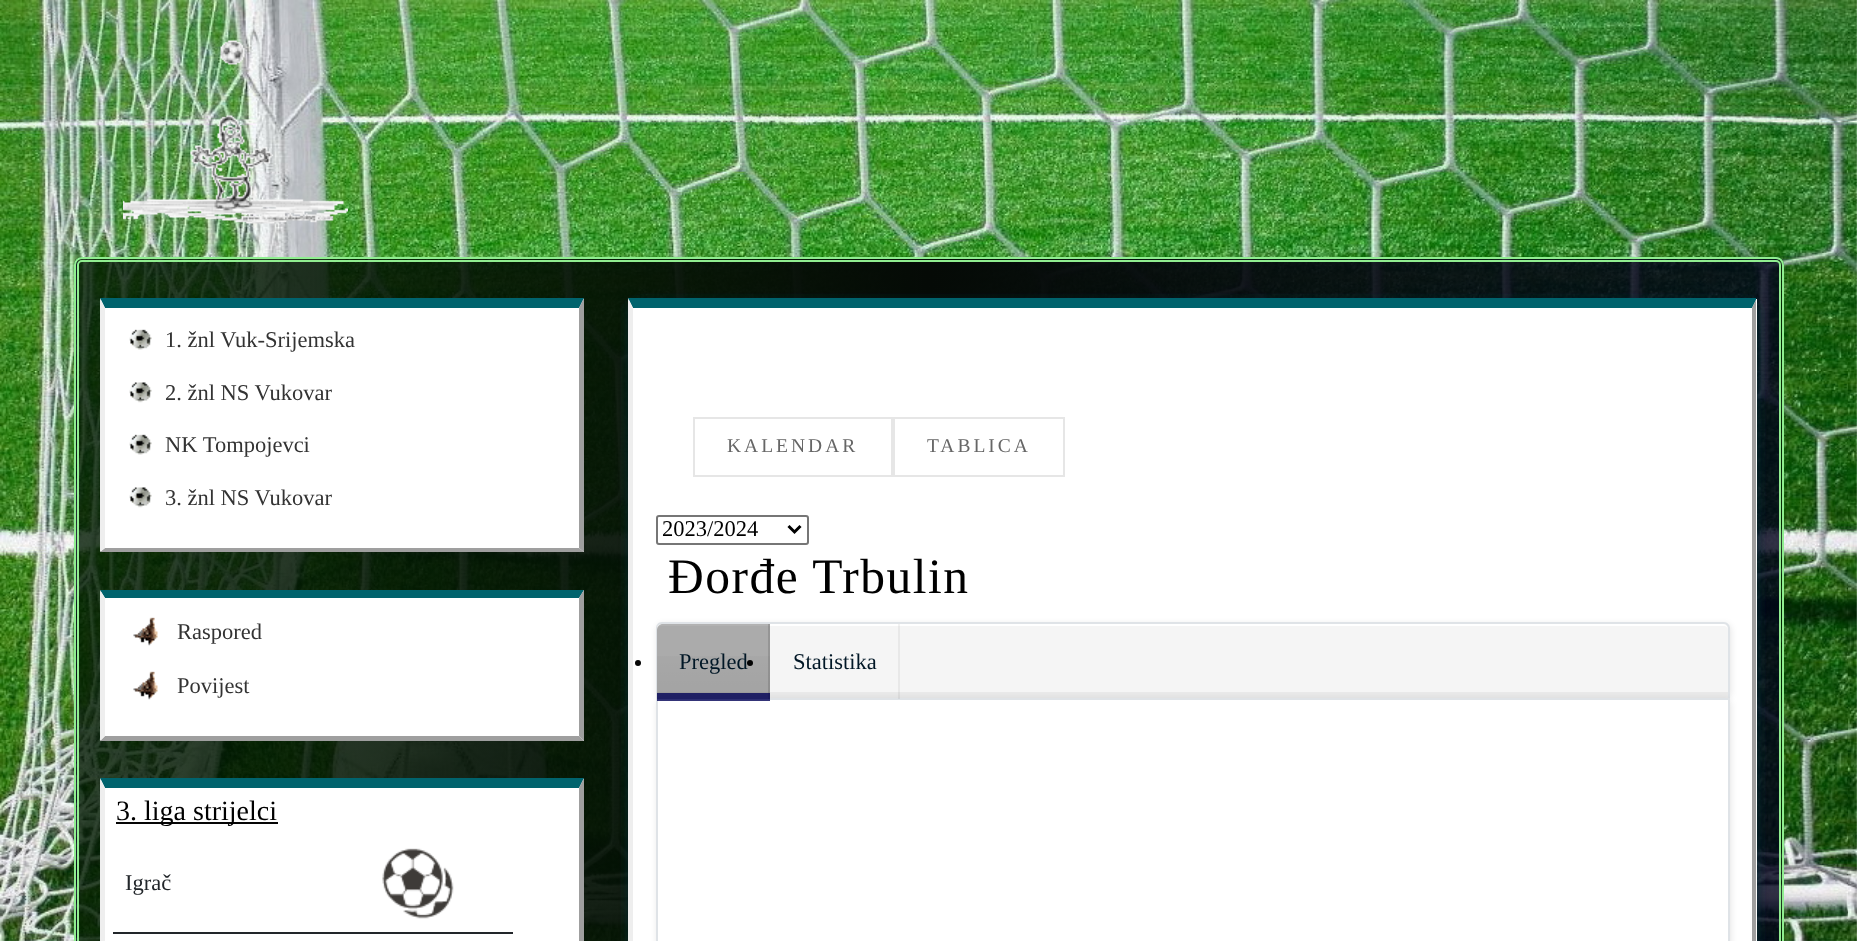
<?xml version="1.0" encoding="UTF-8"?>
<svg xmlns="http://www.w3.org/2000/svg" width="1857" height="941">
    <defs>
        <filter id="blur1" x="-50%" y="-200%" width="200%" height="500%"><feGaussianBlur stdDeviation="1.5"/></filter>
        <clipPath id="clip1"><rect x="74" y="257" width="1710" height="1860" rx="8"/></clipPath>
        <linearGradient id="g1" gradientUnits="userSpaceOnUse" x1="-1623" y1="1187" x2="78" y2="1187"><stop offset="0" stop-color="#001900" stop-opacity="0.8"/><stop offset="0.5" stop-color="#050A06"/><stop offset="1" stop-color="#000019" stop-opacity="0.8"/></linearGradient>
        <linearGradient id="g2" gradientUnits="userSpaceOnUse" x1="78" y1="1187" x2="1779" y2="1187"><stop offset="0" stop-color="#001900" stop-opacity="0.8"/><stop offset="0.5" stop-color="#050A06"/><stop offset="1" stop-color="#000019" stop-opacity="0.8"/></linearGradient>
        <linearGradient id="g3" gradientUnits="userSpaceOnUse" x1="1779" y1="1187" x2="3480" y2="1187"><stop offset="0" stop-color="#001900" stop-opacity="0.8"/><stop offset="0.5" stop-color="#050A06"/><stop offset="1" stop-color="#000019" stop-opacity="0.8"/></linearGradient>
        <filter id="blur2" x="-50%" y="-200%" width="200%" height="500%"><feGaussianBlur stdDeviation="6"/></filter>
        <filter id="blur3" x="-50%" y="-200%" width="200%" height="500%"><feGaussianBlur stdDeviation="3"/></filter>
        <linearGradient id="g4" gradientUnits="userSpaceOnUse" x1="713" y1="624" x2="713" y2="699"><stop offset="0" stop-color="#000000" stop-opacity="0"/><stop offset="1" stop-color="#000000" stop-opacity="0.05"/></linearGradient>
    </defs>
    <rect width="100%" height="100%" fill="#FFFFFF"/>
    <rect x="0" y="-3" width="1857" height="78" fill="#000000" fill-opacity="0.05" filter="url(#blur1)"/>
    <image x="0" y="0" width="1857" height="254" href="img_01.png"/>
    <image x="123" y="40" width="225" height="184" href="img_02.png"/>
    <image x="0" y="253" width="1857" height="688" href="img_03.png"/>
    <g clip-path="url(#clip1)">
        <rect x="74" y="257" width="4" height="684" fill="url(#g1)"/>
        <rect x="78" y="257" width="1701" height="684" fill="url(#g2)"/>
        <rect x="1779" y="257" width="5" height="684" fill="url(#g3)"/>
    </g>
    <rect x="75" y="258" width="1708" height="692" rx="7" fill="none" stroke="#90EE90" stroke-width="2"/>
    <rect x="78" y="261" width="1702" height="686" rx="4" fill="none" stroke="#90EE90" stroke-width="2"/>
    <rect x="101" y="299" width="483" height="253" fill="#FFFFFF"/>
    <path d="M 100 298 H 584 L 579 308 H 105 Z" fill="#00636D"/>
    <path d="M 584 298 V 552 L 579 548 V 308 Z" fill="#9F9F9F"/>
    <path d="M 584 552 H 100 L 105 548 H 579 Z" fill="#9F9F9F"/>
    <path d="M 100 552 V 298 L 105 308 V 548 Z" fill="#EEEEEE"/>
    <image x="129" y="329" width="23" height="21" href="img_04.png"/>
    <text x="165" y="347" font-family="Liberation Serif" font-size="22.5" fill="#333333">1. žnl Vuk-Srijemska</text>
    <image x="129" y="382" width="23" height="21" href="img_05.png"/>
    <text x="165" y="400" font-family="Liberation Serif" font-size="22.5" fill="#333333">2. žnl NS Vukovar</text>
    <image x="129" y="434" width="23" height="21" href="img_04.png"/>
    <text x="165" y="452" font-family="Liberation Serif" font-size="22.5" fill="#333333">NK Tompojevci</text>
    <image x="129" y="487" width="23" height="21" href="img_05.png"/>
    <text x="165" y="505" font-family="Liberation Serif" font-size="22.5" fill="#333333">3. žnl NS Vukovar</text>
    <rect x="101" y="590" width="483" height="151" fill="#FFFFFF"/>
    <path d="M 100 590 H 584 L 579 598 H 105 Z" fill="#00636D"/>
    <path d="M 584 590 V 741 L 579 736 V 598 Z" fill="#9F9F9F"/>
    <path d="M 584 741 H 100 L 105 736 H 579 Z" fill="#9F9F9F"/>
    <path d="M 100 741 V 590 L 105 598 V 736 Z" fill="#EEEEEE"/>
    <image x="133" y="617" width="25" height="29" href="img_06.png"/>
    <text x="177" y="639" font-family="Liberation Serif" font-size="22.5" fill="#333333">Raspored</text>
    <image x="133" y="671" width="25" height="29" href="img_06.png"/>
    <text x="177" y="693" font-family="Liberation Serif" font-size="22.5" fill="#333333">Povijest</text>
    <rect x="101" y="779" width="483" height="162" fill="#FFFFFF"/>
    <path d="M 100 778 H 584 L 579 788 H 105 Z" fill="#00636D"/>
    <path d="M 584 778 V 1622 L 579 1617 V 788 Z" fill="#9F9F9F"/>
    <path d="M 100 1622 V 778 L 105 788 V 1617 Z" fill="#EEEEEE"/>
    <rect x="116" y="822" width="162" height="2" fill="#050505"/>
    <text x="116" y="820" font-family="Liberation Serif" font-size="28" fill="#000000">3. liga strijelci</text>
    <rect x="113" y="932" width="400" height="2" fill="#22262A"/>
    <image x="382" y="848" width="72" height="71" href="img_07.png"/>
    <text x="125" y="890" font-family="Liberation Serif" font-size="22.5" fill="#22262A">Igrač</text>
    <rect x="629" y="302" width="1128" height="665" rx="8" fill="#0A2C33" filter="url(#blur2)"/>
    <rect x="629" y="299" width="1128" height="642" fill="#FFFFFF"/>
    <path d="M 628 298 H 1756 V 300 L 1752 308 H 633 Z" fill="#00636D"/>
    <path d="M 1756 300 V 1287 C 1756 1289 1755 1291 1754 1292 L 1751 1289 L 1752 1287 V 308 Z" fill="#9F9F9F"/>
    <path d="M 633 308 V 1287 L 634 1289 L 631 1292 L 628 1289 V 298 Z" fill="#EEEEEE"/>
    <rect x="694" y="418" width="198" height="58" fill="none" stroke="#E6E6E6" stroke-width="2"/>
    <text x="727" y="452" font-family="Liberation Serif" font-size="19.5" letter-spacing="3" fill="#666666">KALENDAR</text>
    <rect x="894" y="418" width="170" height="58" fill="none" stroke="#E6E6E6" stroke-width="2"/>
    <text x="927" y="452" font-family="Liberation Serif" font-size="19.5" letter-spacing="3" fill="#666666">TABLICA</text>
    <rect x="657" y="516" width="151" height="28" rx="2" fill="none" stroke="#767676" stroke-width="2"/>
    <path d="M 788.5 526 L 794.5 532 L 800.5 526" fill="none" stroke="#000000" stroke-width="3"/>
    <text x="662" y="536" font-family="Liberation Serif" font-size="22.5" fill="#000000">2023/2024</text>
    <text x="668" y="593" font-family="Liberation Serif" font-size="49.5" letter-spacing="1.5" fill="#000000">Đorđe Trbulin</text>
    <rect x="657" y="624" width="1074" height="75" rx="6" fill="#000000" fill-opacity="0.1" filter="url(#blur3)"/>
    <path d="M 662 623 H 1724 C 1727.5 623 1730 625.5 1730 629 V 698 H 656 V 629 C 656 625.5 658.5 623 662 623 Z" fill="#F5F5F5"/>
    <rect x="657" y="692" width="1071" height="6" fill="#E9E9E9"/>
    <path d="M 662 626 H 1724 C 1726 626 1728 628 1728 630 C 1728 627 1726 624 1723 624 H 662 C 659 624 657 627 657 630 C 657 628 659 626 662 626 Z" fill="#FFFFFF"/>
    <path d="M 662 622 H 1724 C 1727 622 1730 625 1730 628 V 698 H 656 V 628 C 656 625 658 622 662 622 Z M 662 624 H 1724 C 1726 624 1728 626 1728 628 V 698 H 657 V 628 C 657 626 659 624 662 624 Z" fill="#DFE3E7" fill-rule="evenodd"/>
    <circle cx="638" cy="663" r="3" fill="#050505"/>
    <circle cx="750" cy="663" r="3" fill="#050505"/>
    <rect x="657" y="699" width="1074" height="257" rx="6" fill="#000000" fill-opacity="0.1" filter="url(#blur3)"/>
    <rect x="657" y="699" width="1072" height="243" fill="#FFFFFF" stroke="#DFE3E7" stroke-width="2"/>
    <path d="M 663 624 H 770 V 699 H 657 V 630 C 657 626.5 659.5 624 663 624 Z" fill="#000000" fill-opacity="0.3"/>
    <rect x="657" y="656" width="113" height="43" fill="url(#g4)"/>
    <rect x="768" y="624" width="2" height="75" fill="#000000" fill-opacity="0.08"/>
    <text x="679" y="669" font-family="Liberation Serif" font-size="22.5" fill="#011726">Pregled</text>
    <rect x="657" y="693" width="113" height="8" fill="#010156" fill-opacity="0.8"/>
    <rect x="898" y="624" width="2" height="75" fill="#000000" fill-opacity="0.05"/>
    <rect x="768" y="624" width="2" height="75" fill="#000000" fill-opacity="0.05"/>
    <text x="793" y="669" font-family="Liberation Serif" font-size="22.5" fill="#011726">Statistika</text>
</svg>
